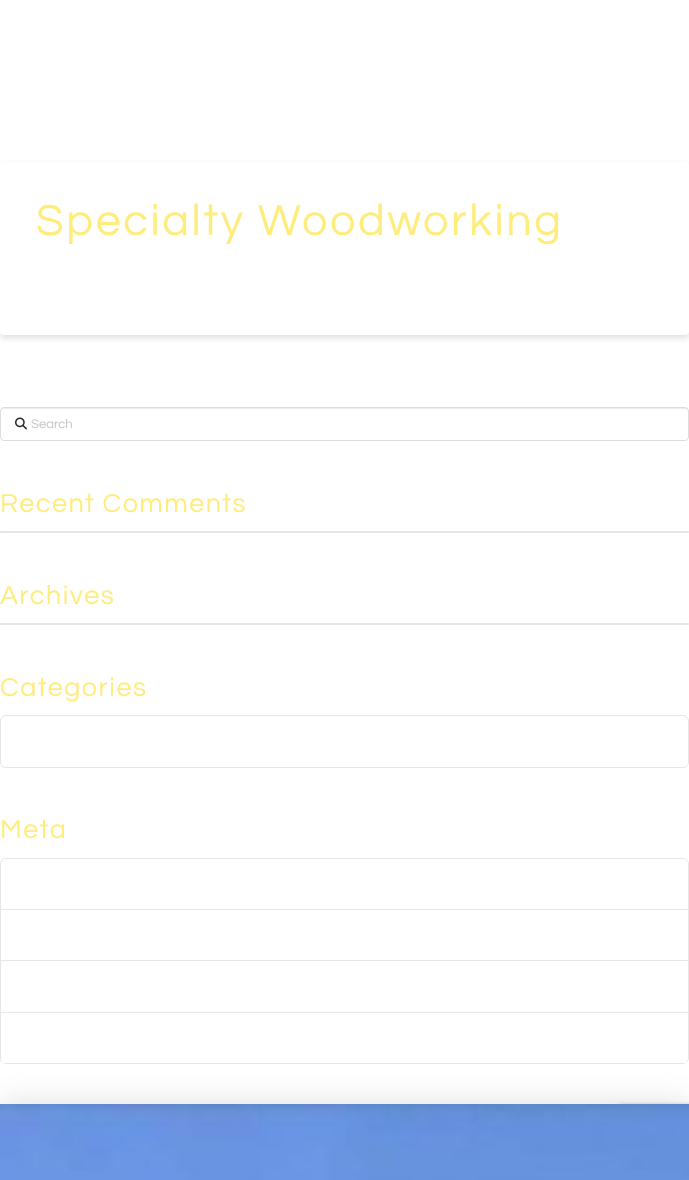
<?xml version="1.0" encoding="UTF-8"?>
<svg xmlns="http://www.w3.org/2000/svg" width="689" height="1180">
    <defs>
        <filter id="blur1" x="-50%" y="-200%" width="200%" height="500%"><feGaussianBlur stdDeviation="3"/></filter>
        <filter id="blur2" x="-50%" y="-200%" width="200%" height="500%"><feGaussianBlur stdDeviation="16"/></filter>
        <filter id="blur3" x="-50%" y="-200%" width="200%" height="500%"><feGaussianBlur stdDeviation="2.5"/></filter>
    </defs>
    <rect width="100%" height="100%" fill="#FFFFFF"/>
    <rect x="0" y="165" width="689" height="173" rx="4" fill="#000000" fill-opacity="0.13" filter="url(#blur1)"/>
    <rect x="0" y="162" width="689" height="173" rx="4" fill="#FFFFFF"/>
    <text x="36" y="235" font-family="Questrial" font-size="45" letter-spacing="2.6" fill="#FEEC7D">Specialty Woodworking</text>
    <path d="M 4 409 H 685 C 687 409 688 410 688 412 V 411 C 688 409 687 408 685 408 H 4 C 2 408 1 409 1 411 V 412 C 1 410 2 409 4 409 Z" fill="#ECECEC"/>
    <rect x="0.5" y="407.5" width="688" height="33" rx="3.5" fill="none" stroke="#DDDDDD"/>
    <image x="15" y="417" width="12" height="13" href="img_01.png"/>
    <text x="31" y="428" font-family="Questrial" font-size="13" fill="#C5C5C5">Search</text>
    <text x="0" y="512" font-family="Questrial" font-size="27" letter-spacing="1.5" fill="#FEEC7D">Recent Comments</text>
    <rect x="0" y="531" width="689" height="2" rx="1" fill="#E6E6E6"/>
    <text x="0" y="604" font-family="Questrial" font-size="27" letter-spacing="1.5" fill="#FEEC7D">Archives</text>
    <rect x="0" y="623" width="689" height="2" rx="1" fill="#E6E6E6"/>
    <text x="0" y="696" font-family="Questrial" font-size="27" letter-spacing="1.5" fill="#FEEC7D">Categories</text>
    <rect x="0.5" y="715.5" width="688" height="52" rx="5.5" fill="none" stroke="#E6E6E6"/>
    <text x="0" y="838" font-family="Questrial" font-size="27" letter-spacing="1.5" fill="#FEEC7D">Meta</text>
    <path d="M 6 858 H 683 C 686 858 689 861 689 864 V 1058 C 689 1061 686 1064 683 1064 H 6 C 3 1064 0 1061 0 1058 V 864 C 0 861 3 858 6 858 Z M 6 859 H 683 C 686 859 688 861 688 864 V 1058 C 688 1061 686 1064 683 1064 H 6 C 3 1064 1 1061 1 1058 V 864 C 1 861 3 859 6 859 Z" fill="#E6E6E6" fill-rule="evenodd"/>
    <rect x="1" y="909" width="687" height="1" fill="#E6E6E6"/>
    <rect x="1" y="960" width="687" height="1" fill="#E6E6E6"/>
    <rect x="1" y="1012" width="687" height="1" fill="#E6E6E6"/>
    <path d="M 6 1064 H 683 L 686 1063 H 3 Z" fill="#E5E5E5"/>
    <rect x="0" y="1106" width="689" height="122" fill="#000000" fill-opacity="0.15" filter="url(#blur2)"/>
    <rect x="619" y="1106" width="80" height="60" rx="2" fill="#808080" filter="url(#blur3)"/>
    <image x="0" y="1104" width="689" height="76" href="img_02.png"/>
</svg>
